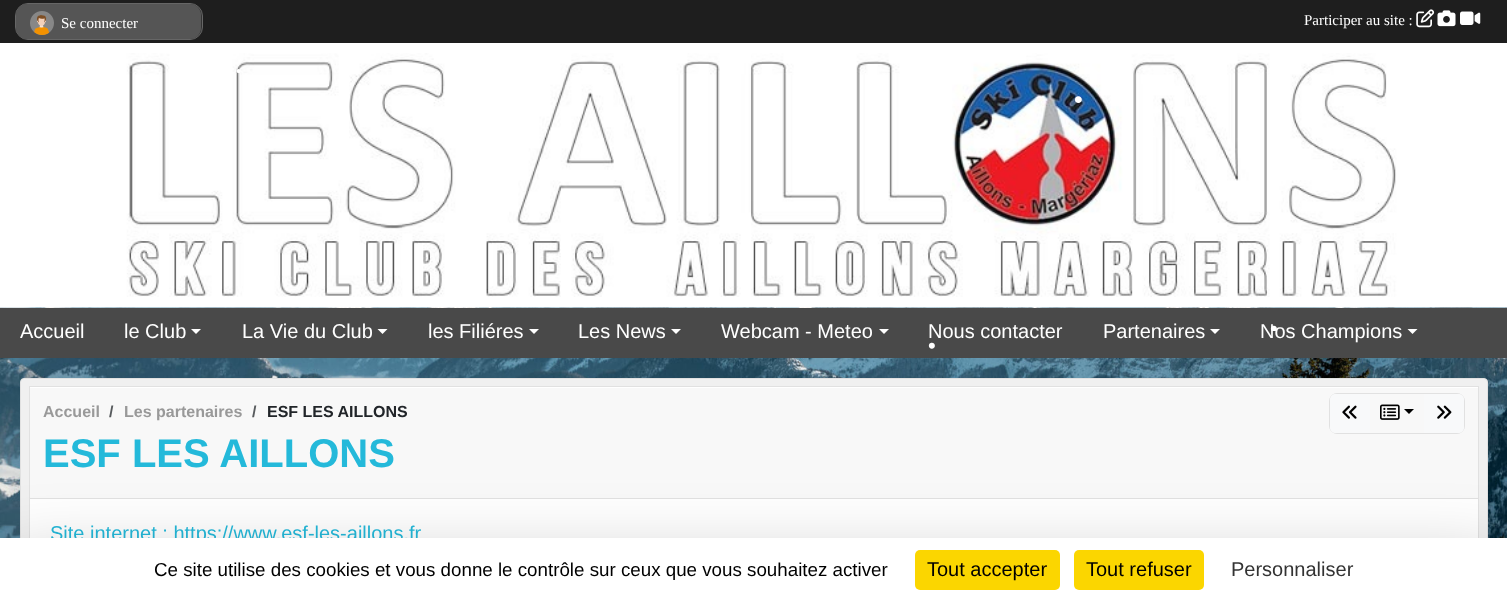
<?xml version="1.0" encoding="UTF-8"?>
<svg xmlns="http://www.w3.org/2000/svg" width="1507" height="602">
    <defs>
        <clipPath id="clip1"><rect x="1269" y="321" width="10" height="10"/></clipPath>
        <filter id="blur1" x="-50%" y="-200%" width="200%" height="500%"><feGaussianBlur stdDeviation="37.5"/></filter>
    </defs>
    <rect width="100%" height="100%" fill="#FFFFFF"/>
    <image x="0" y="307" width="1507" height="231" href="img_01.png"/>
    <rect x="0" y="0" width="1507" height="43" fill="#1E1E1E"/>
    <rect x="15.5" y="3.5" width="187" height="36" rx="12.5" fill="#333333" stroke="#666666"/>
    <rect x="16" y="4" width="185" height="35" rx="11" fill="#555555"/>
    <image x="30" y="11" width="24" height="24" href="img_02.png"/>
    <text x="61" y="28" font-family="Liberation Serif" font-size="15" fill="#FFFFFF">Se connecter</text>
    <text x="1304" y="25" font-family="Liberation Serif" font-size="15" fill="#FFFFFF">Participer au site :</text>
    <image x="1416" y="9" width="19" height="19" href="img_03.png"/>
    <image x="1437" y="10" width="19" height="17" href="img_04.png"/>
    <image x="1460" y="11" width="21" height="14" href="img_05.png"/>
    <image x="0" y="43" width="1507" height="265" href="img_06.png"/>
    <text x="236" y="76" font-family="Liberation Sans" font-size="15" fill="#FFFFFF">•</text>
    <text x="1074" y="108" font-family="Liberation Sans" font-size="25" fill="#FFFFFF">•</text>
    <rect x="0" y="308" width="1507" height="50" fill="#494949"/>
    <text x="20" y="338" font-family="Liberation Sans" font-size="20" fill="#FFFFFF">Accueil</text>
    <text x="124" y="338" font-family="Liberation Sans" font-size="20" fill="#FFFFFF">le Club</text>
    <path d="M 191 329 H 201 L 196 334 Z" fill="#FFFFFF"/>
    <text x="242" y="338" font-family="Liberation Sans" font-size="20" fill="#FFFFFF">La Vie du Club</text>
    <path d="M 377.5 329 H 387.5 L 382.5 334 Z" fill="#FFFFFF"/>
    <text x="428" y="338" font-family="Liberation Sans" font-size="20" fill="#FFFFFF">les Filiéres</text>
    <path d="M 529 329 H 539 L 534 334 Z" fill="#FFFFFF"/>
    <text x="578" y="338" font-family="Liberation Sans" font-size="20" fill="#FFFFFF">Les News</text>
    <path d="M 671 329 H 681 L 676 334 Z" fill="#FFFFFF"/>
    <text x="721" y="338" font-family="Liberation Sans" font-size="20" fill="#FFFFFF">Webcam - Meteo</text>
    <path d="M 879 329 H 889 L 884 334 Z" fill="#FFFFFF"/>
    <text x="928" y="338" font-family="Liberation Sans" font-size="20" fill="#FFFFFF">Nous contacter</text>
    <text x="1103" y="338" font-family="Liberation Sans" font-size="20" fill="#FFFFFF">Partenaires</text>
    <path d="M 1210 329 H 1220 L 1215 334 Z" fill="#FFFFFF"/>
    <text x="1260" y="338" font-family="Liberation Sans" font-size="20" fill="#FFFFFF">Nos Champions</text>
    <path d="M 1407.5 329 H 1417.5 L 1412.5 334 Z" fill="#FFFFFF"/>
    <rect x="20.5" y="378.5" width="1467" height="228" rx="3.5" fill="#F0F0F0" stroke="#E1E1E1"/>
    <rect x="30" y="387" width="1448" height="151" fill="#FFFFFF"/>
    <rect x="29.5" y="386.5" width="1449" height="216" fill="none" stroke="#E1E1E1"/>
    <rect x="30" y="388" width="1448" height="110" fill="#F8F8F8"/>
    <rect x="30" y="498" width="1448" height="1" fill="#E1E1E1"/>
    <text x="43" y="417" font-family="Liberation Sans" font-size="16" font-weight="700" fill="#999999">Accueil</text>
    <text x="109" y="417" font-family="Liberation Sans" font-size="16" font-weight="700" fill="#575A5D">/</text>
    <text x="124" y="417" font-family="Liberation Sans" font-size="16" font-weight="700" fill="#999999">Les partenaires</text>
    <text x="252" y="417" font-family="Liberation Sans" font-size="16" font-weight="700" fill="#575A5D">/</text>
    <text x="267" y="417" font-family="Liberation Sans" font-size="16" font-weight="700" fill="#212529">ESF LES AILLONS</text>
    <rect x="1329.5" y="393.5" width="135" height="40" rx="7.5" fill="none" stroke="#E1E1E1"/>
    <path d="M 1335 394.5 H 1369.5 V 432.5 H 1335 C 1332.5 432.5 1330.5 430.5 1330.5 428 V 399 C 1330.5 396.5 1332.5 394.5 1335 394.5 Z" fill="#F8F9FA" stroke="#F8F9FA"/>
    <image x="1342" y="405" width="15" height="14" href="img_07.png"/>
    <image x="1380" y="404" width="20" height="16" href="img_08.png"/>
    <path d="M 1404 409 H 1414 L 1409 414 Z" fill="#000000"/>
    <path d="M 1424.5 394.5 H 1459 C 1461.5 394.5 1463.5 396.5 1463.5 399 V 428 C 1463.5 430.5 1461.5 432.5 1459 432.5 H 1424.5 Z" fill="#F8F9FA" stroke="#F8F9FA"/>
    <image x="1437" y="405" width="15" height="14" href="img_09.png"/>
    <text x="43" y="467" font-family="Liberation Sans" font-size="40" font-weight="700" fill="#24B9DA">ESF LES AILLONS</text>
    <text x="50" y="540" font-family="Liberation Sans" font-size="20" fill="#24B9DA">Site internet : https://www.esf-les-aillons.fr</text>
    <g clip-path="url(#clip1)">
        <text x="1270" y="336" font-family="Liberation Sans" font-size="22" fill="#FFFFFF">•</text>
    </g>
    <text x="928" y="353" font-family="Liberation Sans" font-size="22" fill="#FFFFFF">•</text>
    <rect x="0" y="563" width="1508" height="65" fill="#000000" fill-opacity="0.25" filter="url(#blur1)"/>
    <rect x="0" y="538" width="1507" height="64" fill="#FFFFFF"/>
    <text x="154" y="576" font-family="Liberation Sans" font-size="18.75" fill="#000000">Ce site utilise des cookies et vous donne le contrôle sur ceux que vous souhaitez activer</text>
    <rect x="915" y="550" width="145" height="40" rx="5" fill="#FBD600"/>
    <text x="927" y="576" font-family="Liberation Sans" font-size="20" fill="#000000">Tout accepter</text>
    <rect x="1074" y="550" width="130" height="40" rx="5" fill="#FBD600"/>
    <text x="1086" y="576" font-family="Liberation Sans" font-size="20" fill="#000000">Tout refuser</text>
    <text x="1231" y="576" font-family="Liberation Sans" font-size="20" fill="#333333">Personnaliser</text>
</svg>
